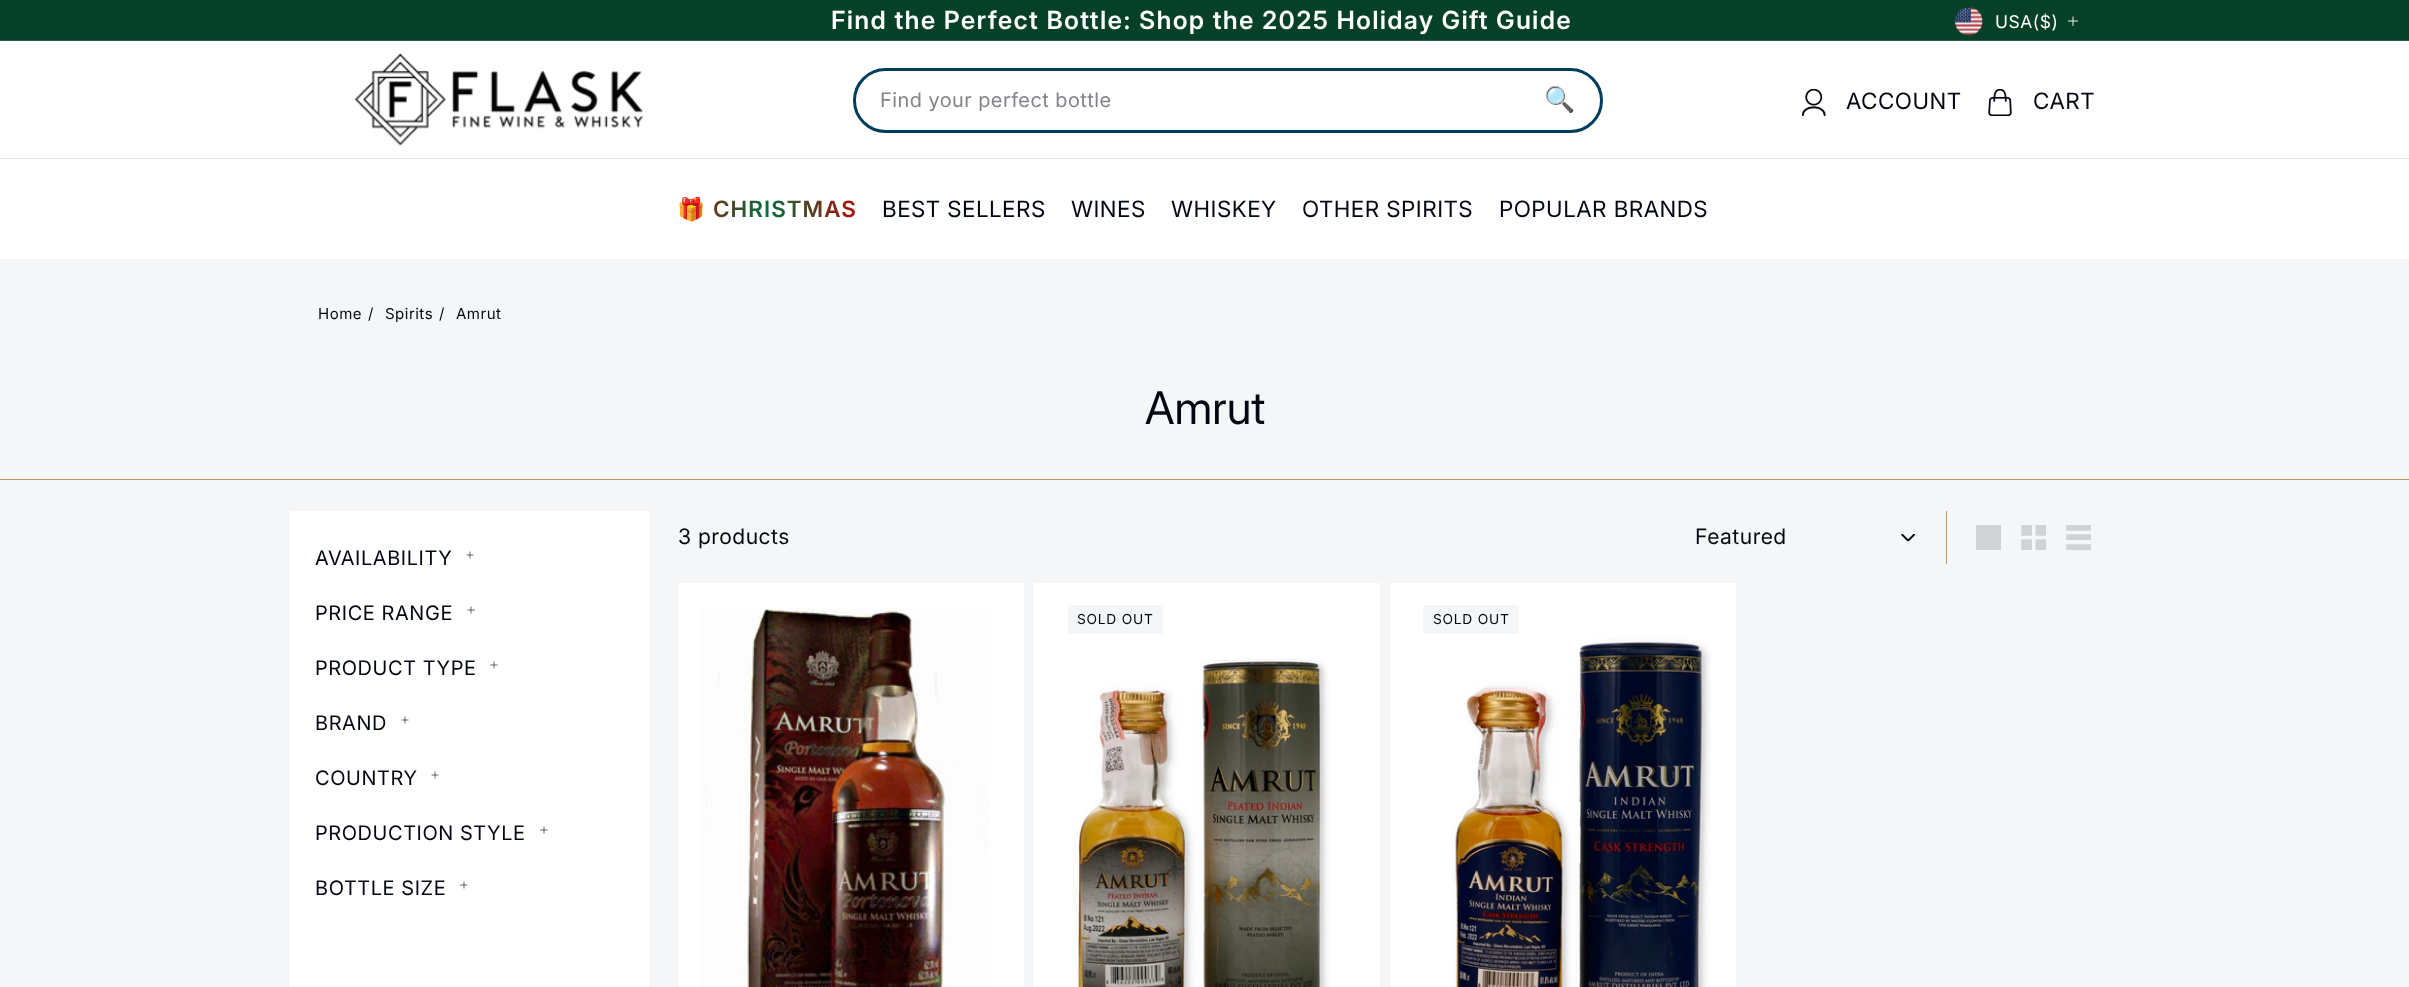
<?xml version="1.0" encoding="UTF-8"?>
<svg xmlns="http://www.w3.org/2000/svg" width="2409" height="987">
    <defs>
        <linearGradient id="g1" gradientUnits="userSpaceOnUse" x1="664" y1="209" x2="870" y2="209"><stop offset="0" stop-color="#CC0000"/><stop offset="0.5" stop-color="#00703C"/><stop offset="1" stop-color="#CC0000"/></linearGradient>
    </defs>
    <rect width="100%" height="100%" fill="#F5F6F8"/>
    <rect x="0" y="0" width="2409" height="40" fill="#064029"/>
    <text x="831" y="29" font-family="'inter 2'" font-size="25" font-weight="600" letter-spacing="1.25" fill="#FFFFFF">Find the Perfect Bottle: Shop the 2025 Holiday Gift Guide</text>
    <image x="1955" y="7" width="28" height="29" href="img_01.png"/>
    <text x="1995" y="28" font-family="'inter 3'" font-size="17.5" letter-spacing="0.5" fill="#FFFFFF">USA($)</text>
    <path d="M 2073 16.5 V 26 M 2078 21 H 2068" fill="none" stroke="#FFFFFF" stroke-width="0.9"/>
    <rect x="0" y="40" width="2409" height="1" fill="#2B5D49"/>
    <rect x="0" y="41" width="2409" height="117" fill="#FFFFFF"/>
    <image x="354" y="53" width="289" height="93" href="img_02.png"/>
    <rect x="854.5" y="69.5" width="747" height="62" rx="31" fill="none" stroke="#003D5C" stroke-width="3"/>
    <text x="880" y="107" font-family="'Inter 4'" font-size="20" letter-spacing="0.5" fill="#818389">Find your perfect bottle</text>
    <text x="1544" y="108" font-family="Noto Color Emoji" font-size="25" letter-spacing="0.6" fill="#030712">🔍</text>
    <image x="1801" y="89" width="25" height="27" href="img_03.png"/>
    <text x="1846" y="109" font-family="'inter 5'" font-size="22.5" letter-spacing="0.5" fill="#030712">ACCOUNT</text>
    <image x="1988" y="89" width="24" height="27" href="img_04.png"/>
    <text x="2033" y="109" font-family="'inter 5'" font-size="22.5" letter-spacing="0.5" fill="#030712">CART</text>
    <rect x="0" y="159" width="2409" height="100" fill="#FFFFFF"/>
    <rect x="0" y="158" width="2409" height="1" fill="#E6E6E7"/>
    <text x="677" y="217" font-family="Noto Color Emoji" font-size="22.5" font-weight="700" letter-spacing="1.1" fill="#030712">🎁</text>
    <text x="713" y="217" font-family="inter" font-size="22.5" font-weight="600" letter-spacing="1.1" fill="url(#g1)">CHRISTMAS</text>
    <text x="882" y="217" font-family="'inter 5'" font-size="22.5" letter-spacing="0.5" fill="#030712">BEST SELLERS</text>
    <text x="1071" y="217" font-family="'inter 5'" font-size="22.5" letter-spacing="0.5" fill="#030712">WINES</text>
    <text x="1171" y="217" font-family="'inter 5'" font-size="22.5" letter-spacing="0.5" fill="#030712">WHISKEY</text>
    <text x="1302" y="217" font-family="'inter 5'" font-size="22.5" letter-spacing="0.5" fill="#030712">OTHER SPIRITS</text>
    <text x="1499" y="217" font-family="'inter 5'" font-size="22.5" letter-spacing="0.5" fill="#030712">POPULAR BRANDS</text>
    <text x="318" y="319" font-family="'inter 3'" font-size="15" letter-spacing="0.5" fill="#030712">Home</text>
    <text x="368" y="319" font-family="'inter 3'" font-size="15" letter-spacing="0.5" fill="#030712">/</text>
    <text x="385" y="319" font-family="'inter 3'" font-size="15" letter-spacing="0.5" fill="#030712">Spirits</text>
    <text x="439" y="319" font-family="'inter 3'" font-size="15" letter-spacing="0.5" fill="#030712">/</text>
    <text x="456" y="319" font-family="'inter 3'" font-size="15" letter-spacing="0.5" fill="#030712">Amrut</text>
    <text x="1145" y="424" font-family="'inter 2'" font-size="45" fill="#030712">Amrut</text>
    <rect x="0" y="479" width="2409" height="1" fill="#BB9661"/>
    <rect x="290" y="511" width="360" height="476" fill="#FFFFFF"/>
    <text x="315" y="565" font-family="'Inter 4'" font-size="20" letter-spacing="0.6" fill="#030712">AVAILABILITY</text>
    <path d="M 470 551.5 V 558.5 M 473.5 555 H 466.5" fill="none" stroke="#030712" stroke-width="0.6"/>
    <text x="315" y="620" font-family="'Inter 4'" font-size="20" letter-spacing="0.6" fill="#030712">PRICE RANGE</text>
    <path d="M 471 606.5 V 613.5 M 475 610 H 467.5" fill="none" stroke="#030712" stroke-width="0.6"/>
    <text x="315" y="675" font-family="'Inter 4'" font-size="20" letter-spacing="0.6" fill="#030712">PRODUCT TYPE</text>
    <path d="M 494 661.5 V 668.5 M 497.5 665 H 490" fill="none" stroke="#030712" stroke-width="0.6"/>
    <text x="315" y="730" font-family="'Inter 4'" font-size="20" letter-spacing="0.6" fill="#030712">BRAND</text>
    <path d="M 405 716.5 V 723.5 M 408.5 720 H 401.5" fill="none" stroke="#030712" stroke-width="0.6"/>
    <text x="315" y="785" font-family="'Inter 4'" font-size="20" letter-spacing="0.6" fill="#030712">COUNTRY</text>
    <path d="M 435 771.5 V 778.5 M 438.5 775 H 431.5" fill="none" stroke="#030712" stroke-width="0.6"/>
    <text x="315" y="840" font-family="'Inter 4'" font-size="20" letter-spacing="0.6" fill="#030712">PRODUCTION STYLE</text>
    <path d="M 544 826.5 V 833.5 M 547.5 830 H 540" fill="none" stroke="#030712" stroke-width="0.6"/>
    <text x="315" y="895" font-family="'Inter 4'" font-size="20" letter-spacing="0.6" fill="#030712">BOTTLE SIZE</text>
    <path d="M 464 881.5 V 888.5 M 467.5 885 H 460" fill="none" stroke="#030712" stroke-width="0.6"/>
    <text x="678" y="544" font-family="inter" font-size="21.25" letter-spacing="0.5" fill="#030712">3 products</text>
    <rect x="1946" y="511" width="1" height="53" fill="#BB9661"/>
    <image x="1901" y="534" width="14" height="7" href="img_05.png"/>
    <text x="1695" y="544" font-family="inter" font-size="21.25" letter-spacing="0.5" fill="#030712">Featured</text>
    <rect x="1976" y="525" width="25" height="25" fill="#D1D2D6"/>
    <image x="2021" y="525" width="25" height="25" href="img_06.png"/>
    <image x="2066" y="525" width="25" height="25" href="img_07.png"/>
    <rect x="678" y="583" width="346" height="404" fill="#FFFFFF"/>
    <image x="700" y="608" width="290" height="379" href="img_08.png"/>
    <rect x="1034" y="583" width="346" height="404" fill="#FFFFFF"/>
    <path d="M 1068 605 H 1160.5 C 1162 605 1163 606 1163 607.5 V 631.5 C 1163 633 1162 634 1160.5 634 H 1068 Z" fill="#F5F6F8"/>
    <text x="1077" y="624" font-family="'inter 3'" font-size="13.75" letter-spacing="0.75" fill="#030712">SOLD OUT</text>
    <image x="1074" y="658" width="255" height="329" href="img_09.png"/>
    <rect x="1390" y="583" width="346" height="404" fill="#FFFFFF"/>
    <path d="M 1423 605 H 1516.5 C 1518 605 1519 606 1519 607.5 V 631.5 C 1519 633 1518 634 1516.5 634 H 1423 Z" fill="#F5F6F8"/>
    <text x="1433" y="624" font-family="'inter 3'" font-size="13.75" letter-spacing="0.75" fill="#030712">SOLD OUT</text>
    <image x="1452" y="638" width="259" height="349" href="img_10.png"/>
</svg>
